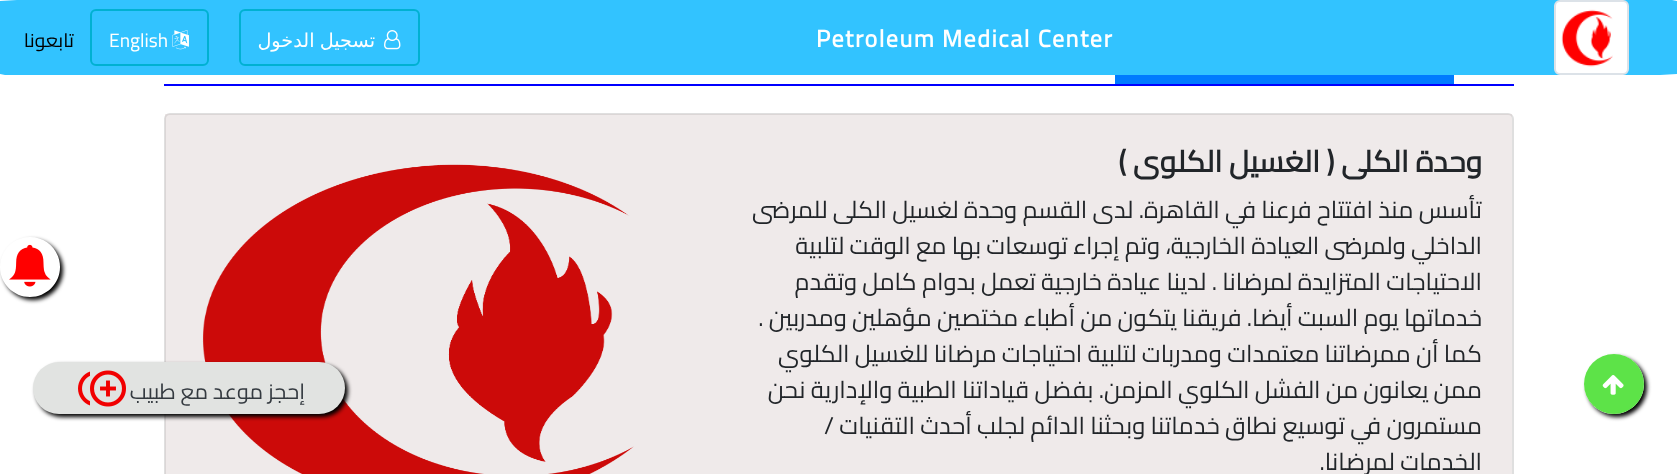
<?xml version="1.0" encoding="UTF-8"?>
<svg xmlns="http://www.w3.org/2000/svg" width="1677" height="474">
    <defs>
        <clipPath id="clip1"><path d="M 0 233 H 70 V 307 H 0 Z M 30 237 C 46.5 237 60 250.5 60 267 C 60 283.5 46.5 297 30 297 C 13.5 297 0 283.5 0 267 C 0 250.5 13.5 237 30 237 Z" clip-rule="evenodd"/></clipPath>
        <filter id="blur1" x="-50%" y="-200%" width="200%" height="500%"><feGaussianBlur stdDeviation="2"/></filter>
        <clipPath id="clip2"><path d="M 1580 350 H 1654 V 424 H 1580 Z M 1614 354 C 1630.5 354 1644 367.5 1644 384 C 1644 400.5 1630.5 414 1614 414 C 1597.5 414 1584 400.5 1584 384 C 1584 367.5 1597.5 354 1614 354 Z" clip-rule="evenodd"/></clipPath>
    </defs>
    <rect width="100%" height="100%" fill="#FFFFFF"/>
    <path d="M 17 0 H 1672 L 1677 1 V 74 L 1660 75 H 5 L 0 74 V 1 Z" fill="#32C3FF"/>
    <rect x="1555" y="1" width="73" height="73" rx="5" fill="#FFFFFF" stroke="#DCE2E8" stroke-width="2"/>
    <image x="1561" y="9" width="52" height="58" href="img_01.png"/>
    <text x="816" y="47" font-family="Cairo" font-size="24" font-weight="700" letter-spacing="1.5" fill="#FFFFFF">Petroleum Medical Center</text>
    <rect x="240" y="10" width="179" height="55" rx="5" fill="none" stroke="#00B1D2" stroke-width="2"/>
    <image x="384" y="30" width="17" height="20" href="img_02.png"/>
    <text x="375" y="47" word-spacing="-1" font-family="DejaVu Sans" font-size="19.25" direction="rtl" fill="#FFFFFF">تسجيل الدخول</text>
    <rect x="91" y="10" width="117" height="55" rx="5" fill="none" stroke="#00B1D2" stroke-width="2"/>
    <image x="172" y="30" width="17" height="20" href="img_03.png"/>
    <text x="109" y="47" font-family="Cairo" font-size="19.25" fill="#FFFFFF">English</text>
    <text x="74" y="47" font-family="Cairo" font-size="19.25" direction="rtl" fill="#000000">تابعونا</text>
    <rect x="164" y="84" width="1350" height="2" fill="#0000FF"/>
    <rect x="1115" y="75" width="339" height="9" fill="#007BFF"/>
    <rect x="165" y="114" width="1348" height="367" rx="5" fill="none" stroke="#DFDFDF" stroke-width="2"/>
    <rect x="165" y="114" width="1347" height="360" fill="#D5CACA" fill-opacity="0.39"/>
    <text x="1482" y="172" font-family="Cairo" font-size="30" font-weight="700" direction="rtl" fill="#212529">وحدة الكلى ( الغسيل الكلوى )</text>
    <text font-family="Cairo" font-size="24" direction="rtl" fill="#212529">
        <tspan x="1482" y="218">تأسس منذ افتتاح فرعنا في القاهرة. لدى القسم وحدة لغسيل الكلى للمرضى</tspan>
        <tspan x="1482" y="254">الداخلي ولمرضى العيادة الخارجية، وتم إجراء توسعات بها مع الوقت لتلبية</tspan>
        <tspan x="1482" y="290">الاحتياجات المتزايدة لمرضانا . لدينا عيادة خارجية تعمل بدوام كامل وتقدم</tspan>
        <tspan x="1482" y="326">خدماتها يوم السبت أيضا. فريقنا يتكون من أطباء مختصين مؤهلين ومدربين .</tspan>
        <tspan x="1482" y="362">كما أن ممرضاتنا معتمدات ومدربات لتلبية احتياجات مرضانا للغسيل الكلوي</tspan>
        <tspan x="1482" y="398">ممن يعانون من الفشل الكلوي المزمن. بفضل قياداتنا الطبية والإدارية نحن</tspan>
        <tspan x="1482" y="434">مستمرون في توسيع نطاق خدماتنا وبحثنا الدائم لجلب أحدث التقنيات /</tspan>
        <tspan x="1482" y="470">الخدمات لمرضانا.</tspan>
    </text>
    <image x="202" y="164" width="432" height="310" href="img_04.png"/>
    <g clip-path="url(#clip1)">
        <rect x="3" y="240" width="60" height="60" rx="30" fill="#000000" filter="url(#blur1)"/>
    </g>
    <image x="9" y="244" width="42" height="43" href="img_05.png"/>
    <g clip-path="url(#clip2)">
        <rect x="1587" y="357" width="60" height="60" rx="30" fill="#000000" filter="url(#blur1)"/>
    </g>
    <circle cx="1614" cy="384" r="30" fill="#51E13A" fill-opacity="0.93"/>
    <image x="1602" y="375" width="22" height="20" href="img_06.png"/>
    <rect x="36" y="365" width="312" height="52" rx="26" fill="#000000" filter="url(#blur1)"/>
    <rect x="33" y="362" width="312" height="52" rx="26" fill="#E1E3E1"/>
    <text x="305" y="399" font-family="Cairo" font-size="21.5" direction="rtl" fill="#343A40">إحجز موعد مع طبيب</text>
    <image x="78" y="370" width="48" height="37" href="img_07.png"/>
</svg>
